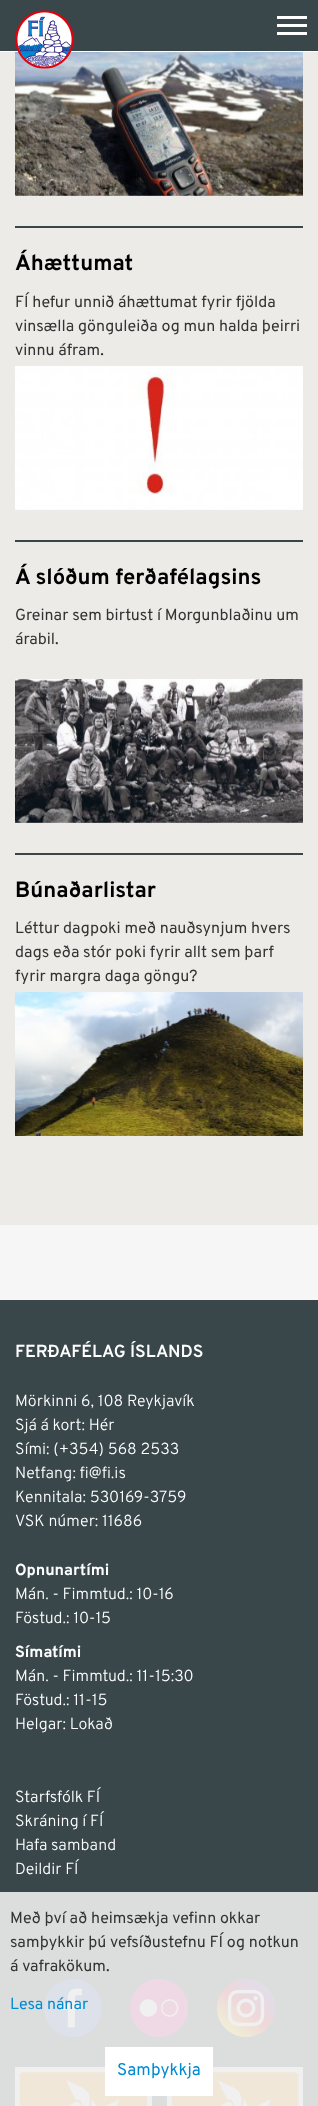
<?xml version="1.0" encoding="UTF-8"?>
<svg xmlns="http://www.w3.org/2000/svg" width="318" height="2106">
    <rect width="100%" height="100%" fill="#F6F6F6"/>
    <rect x="0" y="0" width="318" height="51" fill="#39474B"/>
    <rect x="0" y="51" width="318" height="1" fill="#FFFFFF"/>
    <rect x="0" y="52" width="318" height="1173" fill="#ECEBE8"/>
    <image x="15" y="52" width="288" height="144" href="img_02.png"/>
    <image x="15" y="10" width="59" height="59" href="img_01.png"/>
    <rect x="277" y="16" width="30" height="3" fill="#FFFFFF"/>
    <rect x="277" y="24" width="30" height="3" fill="#FFFFFF"/>
    <rect x="277" y="32" width="30" height="3" fill="#FFFFFF"/>
    <rect x="15" y="226" width="288" height="2" fill="#38464B"/>
    <text x="15" y="270" font-family="Overpass" font-size="22" font-weight="700" fill="#000000">Áhættumat</text>
    <text font-family="Overpass" font-size="16" fill="#333333">
        <tspan x="15" y="307">FÍ hefur unnið áhættumat fyrir fjölda</tspan>
        <tspan x="15" y="331">vinsælla gönguleiða og mun halda þeirri</tspan>
        <tspan x="15" y="355">vinnu áfram.</tspan>
    </text>
    <image x="15" y="366" width="288" height="144" href="img_03.png"/>
    <rect x="15" y="540" width="288" height="2" fill="#38464B"/>
    <text x="15" y="584" font-family="Overpass" font-size="22" font-weight="700" fill="#000000">Á slóðum ferðafélagsins</text>
    <text font-family="Overpass" font-size="16" fill="#333333">
        <tspan x="15" y="620">Greinar sem birtust í Morgunblaðinu um</tspan>
        <tspan x="15" y="644">árabil.</tspan>
    </text>
    <image x="15" y="679" width="288" height="144" href="img_04.png"/>
    <rect x="15" y="853" width="288" height="2" fill="#38464B"/>
    <text x="15" y="897" font-family="Overpass" font-size="22" font-weight="700" fill="#000000">Búnaðarlistar</text>
    <text font-family="Overpass" font-size="16" fill="#333333">
        <tspan x="15" y="933">Léttur dagpoki með nauðsynjum hvers</tspan>
        <tspan x="15" y="957">dags eða stór poki fyrir allt sem þarf</tspan>
        <tspan x="15" y="981">fyrir margra daga göngu?</tspan>
    </text>
    <image x="15" y="992" width="288" height="144" href="img_05.png"/>
    <rect x="0" y="1300" width="318" height="806" fill="#39474B"/>
    <text x="15" y="1357" font-family="Overpass" font-size="17.5" font-weight="600" fill="#FFFFFF">FERÐAFÉLAG ÍSLANDS</text>
    <text font-family="Overpass" font-size="16" font-weight="300" fill="#FFFFFF">
        <tspan x="15" y="1406">Mörkinni 6, 108 Reykjavík</tspan>
        <tspan x="15" y="1430">Sjá á kort: Hér</tspan>
        <tspan x="15" y="1454">Sími: (+354) 568 2533</tspan>
        <tspan x="15" y="1478">Netfang: fi@fi.is</tspan>
        <tspan x="15" y="1502">Kennitala: 530169-3759</tspan>
        <tspan x="15" y="1526">VSK númer: 11686</tspan>
    </text>
    <text x="15" y="1575" font-family="Overpass" font-size="16" font-weight="700" fill="#FFFFFF">Opnunartími</text>
    <text font-family="Overpass" font-size="16" font-weight="300" fill="#FFFFFF">
        <tspan x="15" y="1599">Mán. - Fimmtud.: 10-16</tspan>
        <tspan x="15" y="1623">Föstud.: 10-15</tspan>
    </text>
    <text x="15" y="1657" font-family="Overpass" font-size="16" font-weight="700" fill="#FFFFFF">Símatími</text>
    <text font-family="Overpass" font-size="16" font-weight="300" fill="#FFFFFF">
        <tspan x="15" y="1681">Mán. - Fimmtud.: 11-15:30</tspan>
        <tspan x="15" y="1705">Föstud.: 11-15</tspan>
        <tspan x="15" y="1729">Helgar: Lokað</tspan>
    </text>
    <text font-family="Overpass" font-size="16" font-weight="300" fill="#FFFFFF">
        <tspan x="15" y="1802">Starfsfólk FÍ</tspan>
        <tspan x="15" y="1826">Skráning í FÍ</tspan>
        <tspan x="15" y="1850">Hafa samband</tspan>
        <tspan x="15" y="1874">Deildir FÍ</tspan>
    </text>
    <image x="44" y="1979" width="58" height="58" href="img_06.png"/>
    <image x="130" y="1979" width="58" height="58" href="img_07.png"/>
    <image x="217" y="1979" width="58" height="58" href="img_08.png"/>
    <image x="15" y="2067" width="137" height="39" href="img_09.png"/>
    <image x="167" y="2067" width="136" height="39" href="img_10.png"/>
    <rect x="0" y="1892" width="318" height="214" fill="#EEEEEE" fill-opacity="0.9"/>
    <text font-family="Overpass" font-size="16" fill="#333333">
        <tspan x="10" y="1923">Með því að heimsækja vefinn okkar</tspan>
        <tspan x="10" y="1947">samþykkir þú vefsíðustefnu FÍ og notkun</tspan>
        <tspan x="10" y="1971">á vafrakökum.</tspan>
    </text>
    <text x="10" y="2009" font-family="Overpass" font-size="16" fill="#008AD2">Lesa nánar</text>
    <rect x="105" y="2047" width="108" height="49" fill="#FFFFFF"/>
    <text x="117" y="2075" font-family="Overpass" font-size="17" fill="#008AD2">Samþykkja</text>
</svg>
